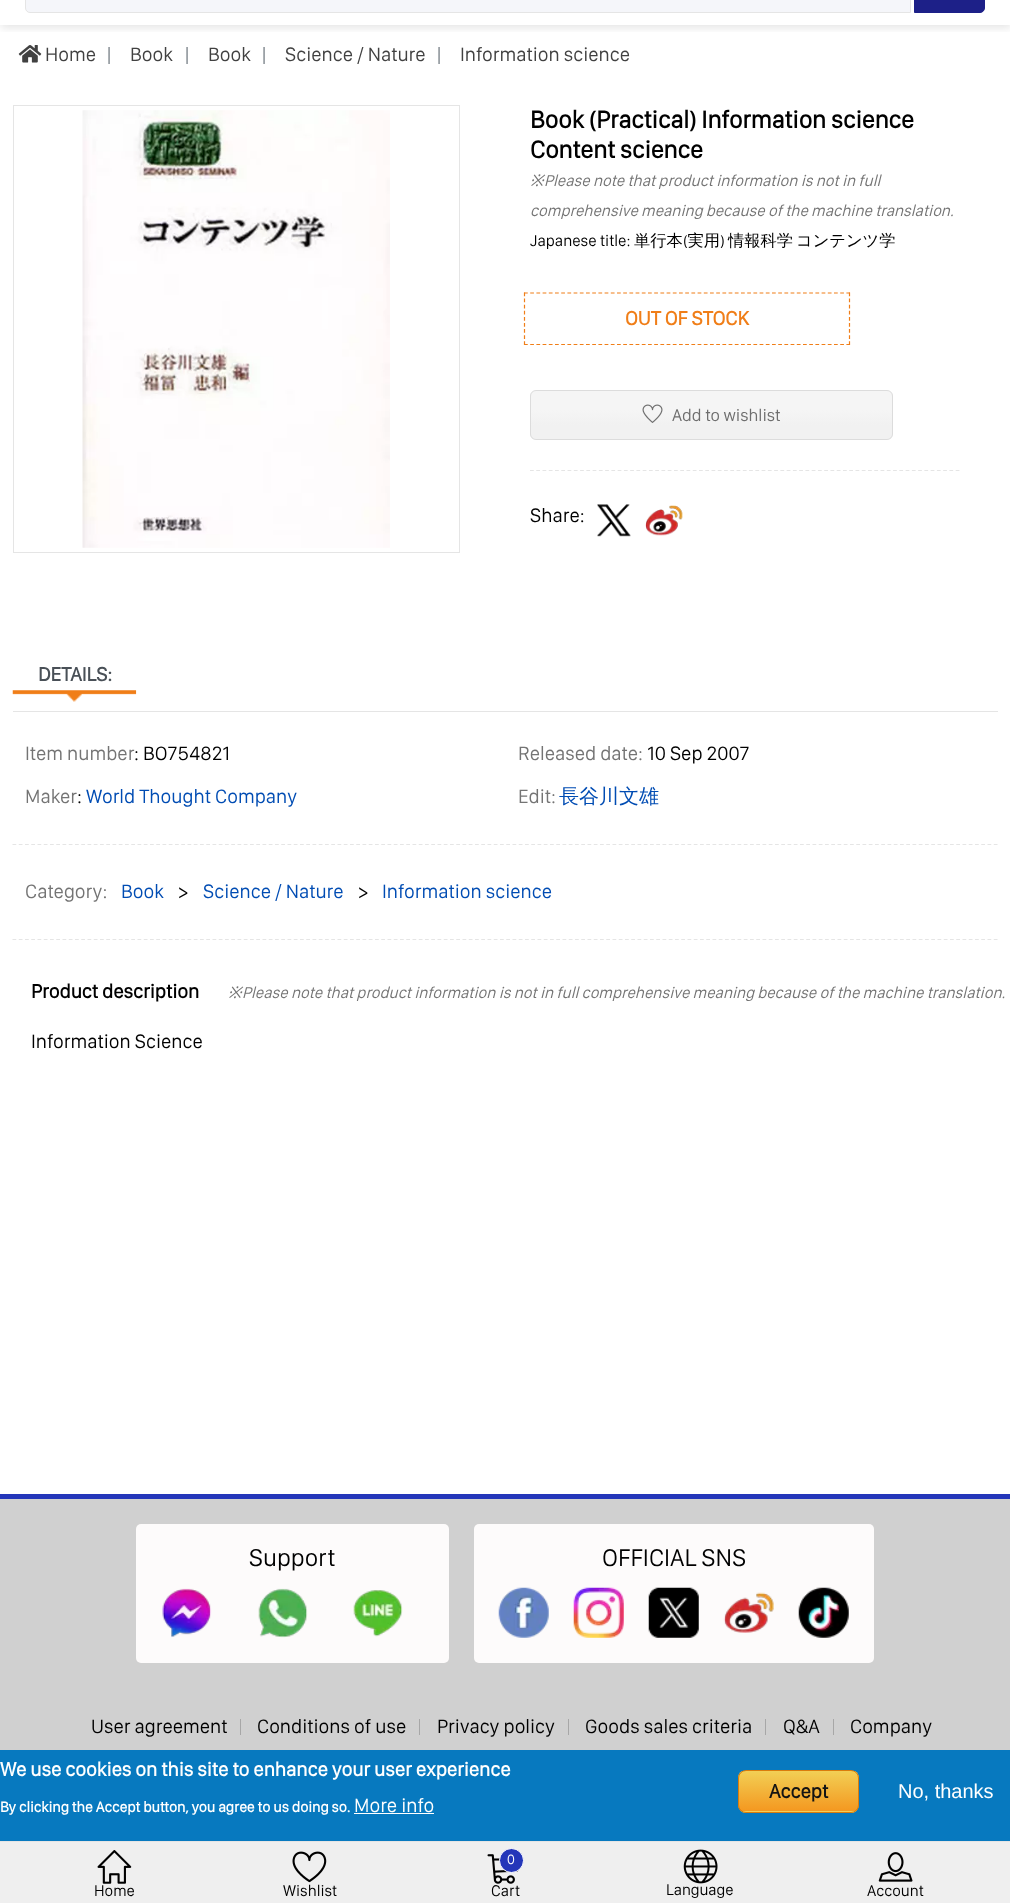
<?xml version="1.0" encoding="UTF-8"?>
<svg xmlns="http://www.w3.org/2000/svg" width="1010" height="1903">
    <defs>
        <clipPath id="clip1"><rect x="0" y="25" width="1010" height="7"/></clipPath>
        <filter id="blur1" x="-50%" y="-200%" width="200%" height="500%"><feGaussianBlur stdDeviation="4.5"/></filter>
        <clipPath id="clip2"><rect x="530" y="390" width="363" height="50" rx="6"/></clipPath>
        <linearGradient id="g1" gradientUnits="userSpaceOnUse" x1="531" y1="410" x2="531" y2="425"><stop offset="0" stop-color="#F5F5F5"/><stop offset="1" stop-color="#F1F1F1"/></linearGradient>
        <clipPath id="clip3"><rect x="738" y="1770" width="121" height="43" rx="8"/></clipPath>
        <linearGradient id="g2" gradientUnits="userSpaceOnUse" x1="739" y1="1771" x2="739" y2="1811"><stop offset="0" stop-color="#F2CF55"/><stop offset="1" stop-color="#F49820"/></linearGradient>
        <linearGradient id="g3" gradientUnits="userSpaceOnUse" x1="739" y1="1811" x2="739" y2="1851"><stop offset="0" stop-color="#F2CF55"/><stop offset="1" stop-color="#F49820"/></linearGradient>
    </defs>
    <rect width="100%" height="100%" fill="#FFFFFF"/>
    <g clip-path="url(#clip1)">
        <rect x="1" y="-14" width="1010" height="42" fill="#000000" fill-opacity="0.1" filter="url(#blur1)"/>
    </g>
    <path d="M 30 -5.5 H 910.5 V 12.5 H 30 C 27.5 12.5 25.5 10.5 25.5 8 V -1 C 25.5 -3.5 27.5 -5.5 30 -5.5 Z" fill="#F5F6FA" stroke="#E5E5E5"/>
    <path d="M 914.5 -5.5 H 980 C 982.5 -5.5 984.5 -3.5 984.5 -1 V 8 C 984.5 10.5 982.5 12.5 980 12.5 H 914.5 Z" fill="#1D2088" stroke="#1D2088"/>
    <image x="18" y="45" width="24" height="18" href="img_01.png"/>
    <text x="45" y="61" font-family="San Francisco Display" font-size="20" fill="#414141">Home</text>
    <text x="106" y="61" font-family="San Francisco Display" font-size="20" fill="#6C757D">|</text>
    <text x="130" y="61" font-family="San Francisco Display" font-size="20" fill="#414141">Book</text>
    <text x="184" y="61" font-family="San Francisco Display" font-size="20" fill="#6C757D">|</text>
    <text x="208" y="61" font-family="San Francisco Display" font-size="20" fill="#414141">Book</text>
    <text x="261" y="61" font-family="San Francisco Display" font-size="20" fill="#6C757D">|</text>
    <text x="285" y="61" font-family="San Francisco Display" font-size="20" fill="#414141">Science / Nature</text>
    <text x="436" y="61" font-family="San Francisco Display" font-size="20" fill="#6C757D">|</text>
    <text x="460" y="61" font-family="San Francisco Display" font-size="20" fill="#414141">Information science</text>
    <rect x="13.5" y="105.5" width="446" height="447" fill="none" stroke="#E5E5E5"/>
    <image x="82" y="110" width="308" height="438" href="img_02.png"/>
    <text font-family="San Francisco Display" font-size="25" font-weight="700" fill="#000000">
        <tspan x="530" y="128">Book (Practical) Information science</tspan>
        <tspan x="530" y="158">Content science</tspan>
    </text>
    <text x="530" y="186" font-family="Noto Sans" font-size="16.25" font-style="italic" fill="#747474">※</text>
    <text x="544" y="186" font-family="San Francisco Display" font-size="16.25" font-style="italic" fill="#747474">Please note that product information is not in full</text>
    <text x="530" y="216" font-family="San Francisco Display" font-size="16.25" font-style="italic" fill="#747474">comprehensive meaning because of the machine translation.</text>
    <text x="530" y="246" font-family="San Francisco Display" font-size="16.25" fill="#000000">Japanese title:</text>
    <text x="634" y="246" font-family="WenQuanYi Zen Hei" font-size="16.25" font-weight="500" fill="#000000">単行本 実用</text>
    <text x="728" y="246" font-family="WenQuanYi Zen Hei" font-size="16.25" font-weight="500" fill="#000000">情報科学</text>
    <text x="796" y="246" font-family="WenQuanYi Zen Hei" font-size="16.25" font-weight="500" fill="#000000">コンテンツ学</text>
    <text x="683" y="246" font-family="San Francisco Display" font-size="16.25" fill="#000000">(</text>
    <text x="720" y="246" font-family="San Francisco Display" font-size="16.25" fill="#000000">)</text>
    <path d="M 524 293 H 850" fill="none" stroke="#F07E18" stroke-width="1.2" stroke-dasharray="3.75 2.45"/>
    <path d="M 849.5 292.5 V 345" fill="none" stroke="#F07E18" stroke-width="1.2" stroke-dasharray="3.75 2.35"/>
    <path d="M 524 344.5 H 850" fill="none" stroke="#F07E18" stroke-width="1.2" stroke-dasharray="3.75 2.45"/>
    <path d="M 524.5 292.5 V 345" fill="none" stroke="#F07E18" stroke-width="1.2" stroke-dasharray="3.75 2.35"/>
    <text x="625" y="325" font-family="San Francisco Display" font-size="20" font-weight="700" fill="#F07E18">OUT OF STOCK</text>
    <g clip-path="url(#clip2)">
        <rect x="530" y="391" width="363" height="48" fill="url(#g1)"/>
    </g>
    <rect x="530.5" y="390.5" width="362" height="49" rx="5.5" fill="none" stroke="#DCDCDC"/>
    <image x="642" y="404" width="21" height="19" href="img_03.png"/>
    <text x="672" y="421" font-family="San Francisco Display" font-size="17.5" fill="#6E6E6E">Add to wishlist</text>
    <path d="M 530 470.5 H 960" fill="none" stroke="#E5E5E5" stroke-width="1.2" stroke-dasharray="3.75 2.51"/>
    <text x="530" y="522" font-family="San Francisco Display" font-size="20" fill="#000000">Share:</text>
    <image x="597" y="504" width="34" height="33" href="img_04.png"/>
    <image x="645" y="505" width="38" height="31" href="img_05.png"/>
    <rect x="13" y="711" width="985" height="1" fill="#E5E5E5"/>
    <image x="12" y="690" width="125" height="12" href="img_06.png"/>
    <text x="38" y="681" font-family="San Francisco Display" font-size="20" font-weight="700" fill="#495057">DETAILS:</text>
    <path d="M 12.5 844.5 H 997.5" fill="none" stroke="#E5E5E5" stroke-width="1.2" stroke-dasharray="3.75 2.5"/>
    <text x="25" y="760" font-family="San Francisco Display" font-size="20" fill="#747474">Item number</text>
    <text x="134" y="760" font-family="San Francisco Display" font-size="20" fill="#000000">: BO754821</text>
    <text x="518" y="760" font-family="San Francisco Display" font-size="20" fill="#747474">Released date:</text>
    <text x="647" y="760" font-family="San Francisco Display" font-size="20" fill="#000000">10 Sep 2007</text>
    <text x="25" y="803" font-family="San Francisco Display" font-size="20" fill="#747474">Maker</text>
    <text x="77" y="803" font-family="San Francisco Display" font-size="20" fill="#000000">:</text>
    <text x="86" y="803" font-family="San Francisco Display" font-size="20" fill="#004CB3">World Thought Company</text>
    <text x="518" y="803" font-family="San Francisco Display" font-size="20" fill="#747474">Edit:</text>
    <text x="559" y="803" font-family="WenQuanYi Zen Hei" font-size="20" font-weight="500" fill="#004CB3">長谷川文雄</text>
    <path d="M 12.5 939.5 H 997.5" fill="none" stroke="#E5E5E5" stroke-width="1.2" stroke-dasharray="3.75 2.5"/>
    <text x="25" y="898" font-family="San Francisco Display" font-size="20" fill="#747474">Category:</text>
    <text x="121" y="898" font-family="San Francisco Display" font-size="20" fill="#004CB3">Book</text>
    <text x="178" y="898" font-family="San Francisco Display" font-size="20" fill="#000000">&gt;</text>
    <text x="203" y="898" font-family="San Francisco Display" font-size="20" fill="#004CB3">Science / Nature</text>
    <text x="358" y="898" font-family="San Francisco Display" font-size="20" fill="#000000">&gt;</text>
    <text x="382" y="898" font-family="San Francisco Display" font-size="20" fill="#004CB3">Information science</text>
    <text x="31" y="998" font-family="San Francisco Display" font-size="20" font-weight="700" fill="#000000">Product description</text>
    <text x="228" y="998" font-family="Noto Sans" font-size="16.25" font-style="italic" fill="#747474">※</text>
    <text x="242" y="998" font-family="San Francisco Display" font-size="16.25" font-style="italic" fill="#747474">Please note that product information is not in full comprehensive meaning because of the machine translation.</text>
    <text x="31" y="1048" font-family="San Francisco Display" font-size="20" fill="#000000">Information Science</text>
    <rect x="0" y="1499" width="1010" height="251" fill="#D0D0D0"/>
    <rect x="0" y="1494" width="1010" height="5" fill="#2436B9"/>
    <rect x="136" y="1524" width="313" height="139" rx="5" fill="#FDFBFB"/>
    <text x="249" y="1566" font-family="San Francisco Display" font-size="25" fill="#000000">Support</text>
    <image x="162" y="1588" width="50" height="50" href="img_07.png"/>
    <image x="258" y="1588" width="50" height="50" href="img_08.png"/>
    <image x="353" y="1590" width="50" height="47" href="img_09.png"/>
    <rect x="474" y="1524" width="400" height="139" rx="5" fill="#FDFBFB"/>
    <text x="602" y="1566" font-family="San Francisco Display" font-size="25" fill="#000000">OFFICIAL SNS</text>
    <image x="498" y="1587" width="51" height="51" href="img_10.png"/>
    <image x="573" y="1587" width="51" height="51" href="img_11.png"/>
    <image x="648" y="1587" width="51" height="51" href="img_12.png"/>
    <image x="723" y="1592" width="51" height="41" href="img_13.png"/>
    <image x="798" y="1587" width="51" height="51" href="img_14.png"/>
    <rect x="240" y="1719" width="1" height="16" fill="#A7A7A7"/>
    <text x="91" y="1733" font-family="San Francisco Display" font-size="20" fill="#000000">User agreement</text>
    <rect x="419" y="1719" width="1" height="16" fill="#A7A7A7"/>
    <text x="257" y="1733" font-family="San Francisco Display" font-size="20" fill="#000000">Conditions of use</text>
    <rect x="568" y="1719" width="1" height="16" fill="#A7A7A7"/>
    <text x="437" y="1733" font-family="San Francisco Display" font-size="20" fill="#000000">Privacy policy</text>
    <rect x="765" y="1719" width="1" height="16" fill="#A7A7A7"/>
    <text x="585" y="1733" font-family="San Francisco Display" font-size="20" fill="#000000">Goods sales criteria</text>
    <rect x="833" y="1719" width="1" height="16" fill="#A7A7A7"/>
    <text x="783" y="1733" font-family="San Francisco Display" font-size="20" fill="#000000">Q&amp;A</text>
    <text x="850" y="1733" font-family="San Francisco Display" font-size="20" fill="#000000">Company</text>
    <rect x="0" y="1842" width="1010" height="61" fill="#EFEFEF"/>
    <rect x="0" y="1841" width="1010" height="1" fill="#E5E5E5"/>
    <image x="97" y="1850" width="35" height="34" href="img_15.png"/>
    <text x="94" y="1896" font-family="San Francisco Display" font-size="16" fill="#000000">Home</text>
    <image x="292" y="1851" width="35" height="32" href="img_16.png"/>
    <text x="283" y="1896" font-family="San Francisco Display" font-size="16" fill="#000000">Wishlist</text>
    <image x="487" y="1854" width="32" height="30" href="img_17.png"/>
    <circle cx="511.5" cy="1860.5" r="12" fill="#2436B9" stroke="#FFFFFF"/>
    <text x="507" y="1864" font-family="San Francisco Display" font-size="14" fill="#FFFFFF">0</text>
    <text x="491" y="1896" font-family="San Francisco Display" font-size="16" fill="#000000">Cart</text>
    <image x="683" y="1849" width="35" height="35" href="img_18.png"/>
    <text x="666" y="1895" font-family="San Francisco Display" font-size="16" fill="#000000">Language</text>
    <image x="878" y="1852" width="35" height="30" href="img_19.png"/>
    <text x="867" y="1896" font-family="San Francisco Display" font-size="16" fill="#000000">Account</text>
    <rect x="0" y="1750" width="1010" height="91" fill="#0779BF"/>
    <text x="0" y="1776" font-family="San Francisco Display" font-size="20" font-weight="700" fill="#FFFFFF">We use cookies on this site to enhance your user experience</text>
    <text x="0" y="1812" font-family="San Francisco Display" font-size="15" font-weight="700" fill="#FFFFFF">By clicking the Accept button, you agree to us doing so.</text>
    <text x="354" y="1812" font-family="San Francisco Display" font-size="20" fill="#FFFFFF">More info</text>
    <rect x="354" y="1813" width="80" height="1" fill="#FFFFFF"/>
    <g clip-path="url(#clip3)">
        <rect x="738" y="1771" width="121" height="40" fill="url(#g2)"/>
        <rect x="738" y="1811" width="121" height="2" fill="url(#g3)"/>
    </g>
    <rect x="738.5" y="1770.5" width="120" height="42" rx="7.5" fill="none" stroke="#DA7C0C"/>
    <text x="769" y="1798" font-family="San Francisco Display" font-size="20" font-weight="700" fill="#131313">Accept</text>
    <text x="898" y="1798" font-family="Liberation Sans" font-size="20" fill="#FFFFFF">No, thanks</text>
</svg>
